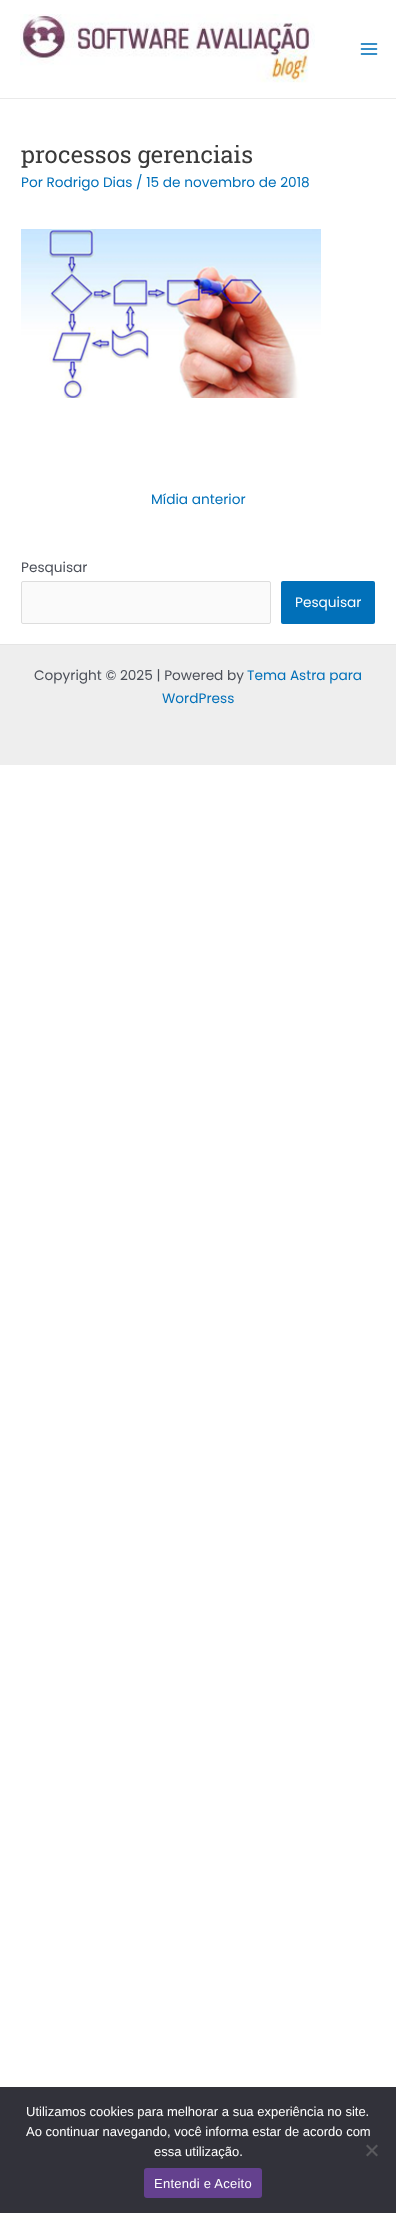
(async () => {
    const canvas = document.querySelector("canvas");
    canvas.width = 396;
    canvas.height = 2213;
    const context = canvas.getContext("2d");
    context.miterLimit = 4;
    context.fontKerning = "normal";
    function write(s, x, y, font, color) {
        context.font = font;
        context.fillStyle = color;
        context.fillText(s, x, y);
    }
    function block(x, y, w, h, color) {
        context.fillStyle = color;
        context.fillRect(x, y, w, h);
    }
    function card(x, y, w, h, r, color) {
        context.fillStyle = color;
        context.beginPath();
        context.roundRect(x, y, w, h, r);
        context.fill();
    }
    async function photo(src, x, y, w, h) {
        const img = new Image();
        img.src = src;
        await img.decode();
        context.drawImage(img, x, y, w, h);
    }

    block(0, 0, 396, 2213, "rgb(255, 255, 255)");
    block(0, 98, 396, 1, "rgb(234, 234, 234)");
    await photo("media/1.png", 20, 14, 295, 69);
    await photo("media/2.png", 360, 43, 18, 12);
    write("processos gerenciais", 21, 163, "23.75px Roboto Slab", "rgb(58, 58, 58)");
    write("Por Rodrigo Dias / 15 de novembro de 2018", 21, 187, "13.7px Poppins", "rgb(1, 112, 185)");
    await photo("media/3.png", 21, 229, 300, 169);
    write("Mídia anterior", 151, 504, "13.7px Poppins", "rgb(1, 112, 185)");
    write("Pesquisar", 21, 572, "13.7px Poppins", "rgb(75, 79, 88)");
    context.fillStyle = "rgb(250, 250, 250)";
    context.beginPath();
    context.roundRect(21.5, 581.5, 249, 42, 1.5);
    context.fill();
    context.strokeStyle = "rgb(221, 221, 221)";
    context.stroke();
    card(281, 581, 94, 43, 2, "rgb(1, 112, 185)");
    write("Pesquisar", 295, 607, "13.7px Poppins", "rgb(255, 255, 255)");
    block(0, 645, 396, 120, "rgb(238, 238, 238)");
    block(0, 644, 396, 1, "rgb(229, 229, 229)");
    write("Copyright © 2025 | Powered by", 34, 680, "13.7px Poppins", "rgb(75, 79, 88)");
    write("Tema Astra para", 247, 680, "13.7px Poppins", "rgb(1, 112, 185)");
    write("WordPress", 162, 703, "13.7px Poppins", "rgb(1, 112, 185)");
    block(0, 2087, 396, 126, "rgb(50, 50, 58)");
    write("Utilizamos cookies para melhorar a sua experiência no site.", 26, 2116, "13px Liberation Sans", "rgb(255, 255, 255)");
    write("Ao continuar navegando, você informa estar de acordo com", 26, 2136, "13px Liberation Sans", "rgb(255, 255, 255)");
    write("essa utilização.", 154, 2156, "13px Liberation Sans", "rgb(255, 255, 255)");
    context.fillStyle = "rgb(89, 89, 93)";
    context.beginPath();
    context.moveTo(376.5, 2144.5);
    context.lineTo(378, 2146);
    context.lineTo(367.5, 2156.5);
    context.lineTo(366, 2155);
    context.closePath();
    context.fill();
    context.beginPath();
    context.moveTo(366, 2146);
    context.lineTo(367.5, 2144.5);
    context.lineTo(378, 2155);
    context.lineTo(376.5, 2156.5);
    context.closePath();
    context.fill();
    card(144, 2168, 118, 30, 3, "rgb(100, 65, 142)");
    context.letterSpacing = "0.25px";
    write("Entendi e Aceito", 154, 2188, "13px Liberation Sans", "rgb(255, 255, 255)");
})();
